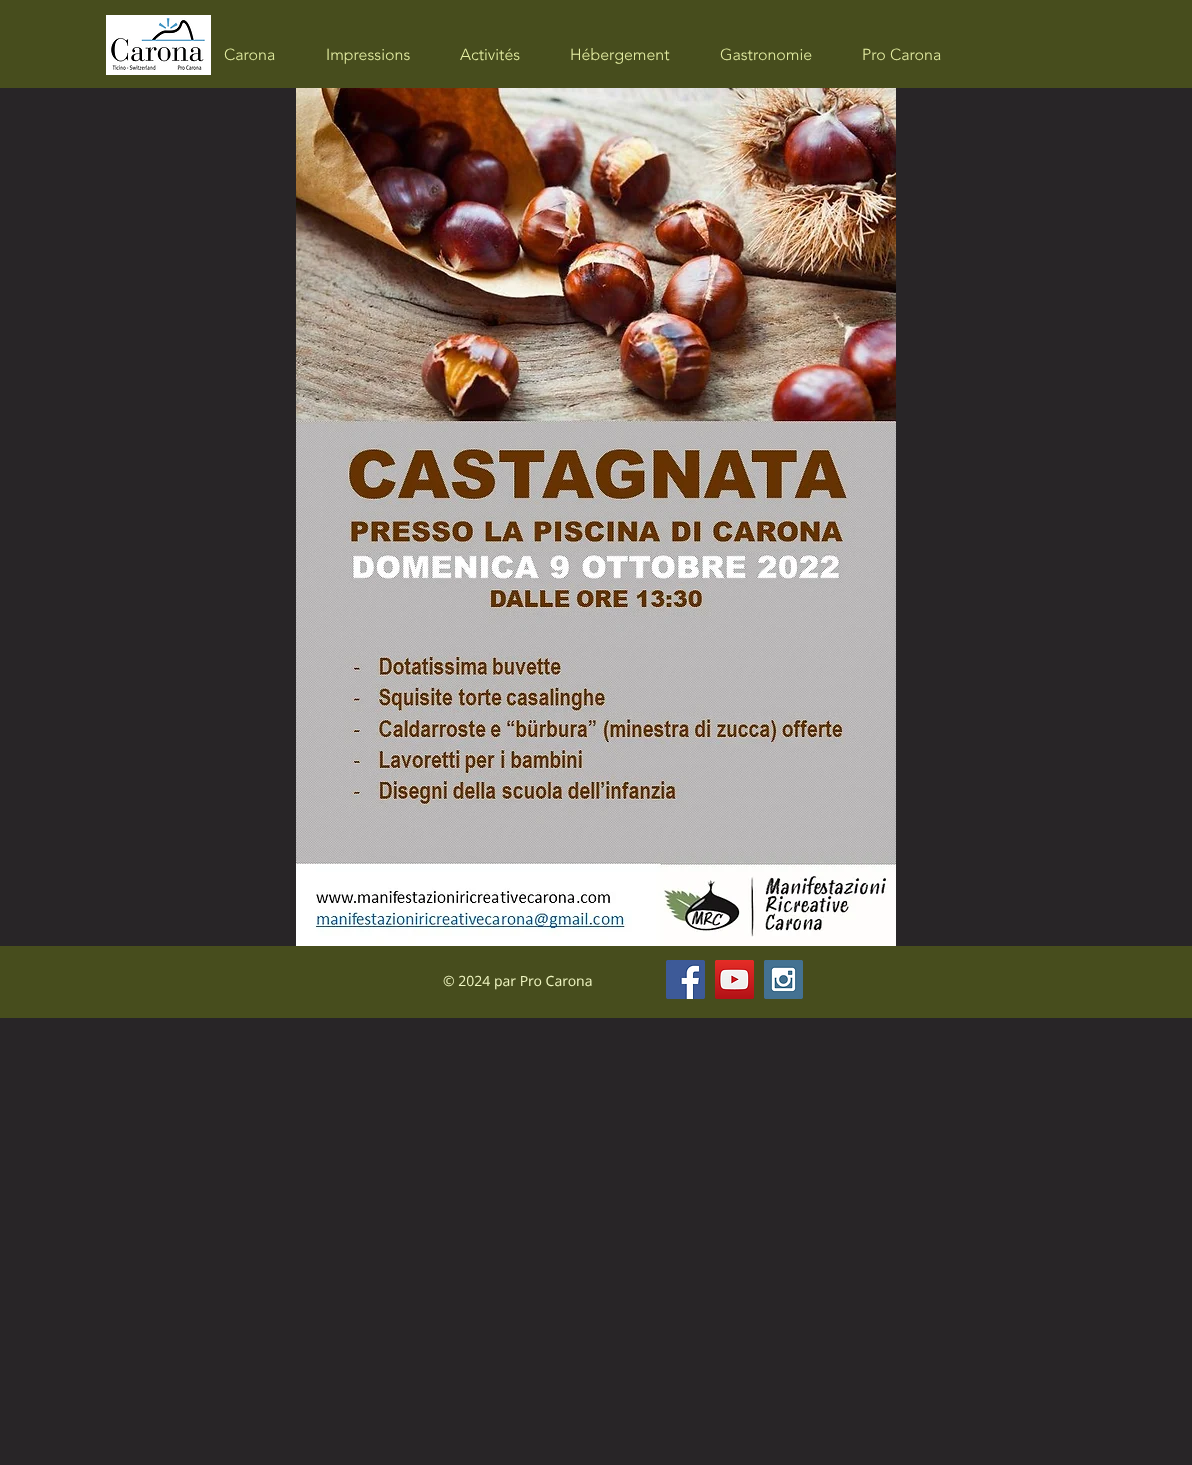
(async () => {
    const canvas = document.querySelector("canvas");
    canvas.width = 1192;
    canvas.height = 1465;
    const context = canvas.getContext("2d");
    context.miterLimit = 4;
    context.fontKerning = "normal";
    function write(s, x, y, font, color) {
        context.font = font;
        context.fillStyle = color;
        context.fillText(s, x, y);
    }
    function block(x, y, w, h, color) {
        context.fillStyle = color;
        context.fillRect(x, y, w, h);
    }
    async function photo(src, x, y, w, h) {
        const img = new Image();
        img.src = src;
        await img.decode();
        context.drawImage(img, x, y, w, h);
    }

    block(0, 0, 1192, 1465, "rgb(40, 37, 39)");
    block(0, 0, 1192, 88, "rgb(71, 77, 29)");
    await photo("media/1.png", 106, 15, 105, 60);
    write("Carona", 224, 60, "300 16px 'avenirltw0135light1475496'", "rgb(230, 240, 164)");
    write("Impressions", 326, 60, "300 16px 'avenirltw0135light1475496'", "rgb(230, 240, 164)");
    write("Activités", 460, 60, "300 16px 'avenirltw0135light1475496'", "rgb(230, 240, 164)");
    write("Hébergement", 570, 60, "300 16px 'avenirltw0135light1475496'", "rgb(230, 240, 164)");
    write("Gastronomie", 720, 60, "300 16px 'avenirltw0135light1475496'", "rgb(230, 240, 164)");
    write("Pro Carona", 862, 60, "300 16px 'avenirltw0135light1475496'", "rgb(230, 240, 164)");
    await photo("media/2.png", 296, 88, 600, 858);
    block(0, 946, 1192, 72, "rgb(71, 77, 29)");
    write("© 2024 par Pro Carona", 443, 986, "14px Open Sans", "rgb(241, 247, 195)");
    await photo("media/3.png", 666, 960, 39, 39);
    await photo("media/4.png", 715, 960, 39, 39);
    await photo("media/5.png", 764, 960, 39, 39);
})();
